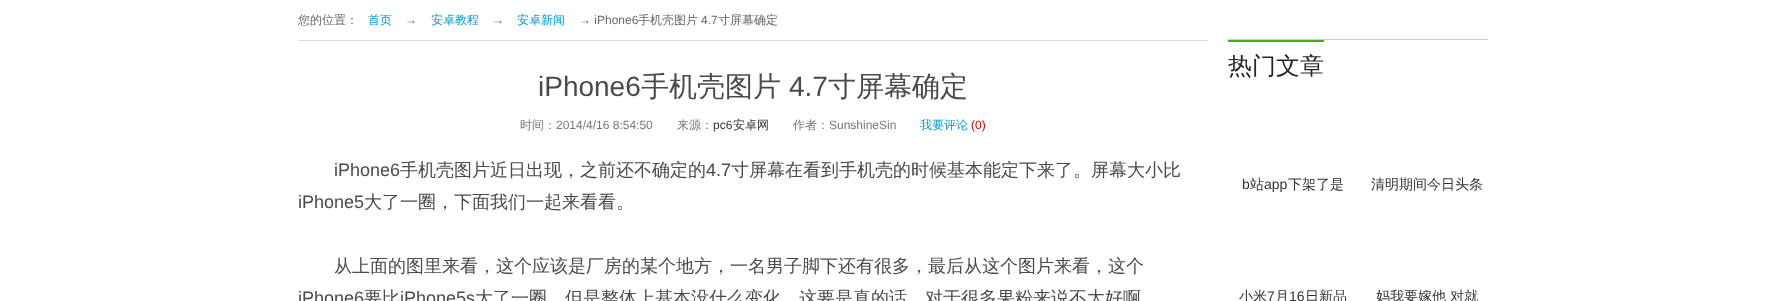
(async () => {
    const canvas = document.querySelector("canvas");
    canvas.width = 1786;
    canvas.height = 301;
    const context = canvas.getContext("2d");
    context.miterLimit = 4;
    context.fontKerning = "normal";
    function write(s, x, y, font, color) {
        context.font = font;
        context.fillStyle = color;
        context.fillText(s, x, y);
    }
    function block(x, y, w, h, color) {
        context.fillStyle = color;
        context.fillRect(x, y, w, h);
    }

    block(0, 0, 1786, 301, "rgb(255, 255, 255)");
    block(298, 40, 910, 1, "rgb(219, 219, 219)");
    write("您的位置：", 298, 24, "500 12px WenQuanYi Zen Hei", "rgb(102, 102, 102)");
    write("首页", 368, 24, "500 12px WenQuanYi Zen Hei", "rgb(3, 155, 217)");
    write("→", 405, 24, "12px Liberation Sans", "rgb(102, 102, 102)");
    write("安卓教程", 431, 24, "500 12px WenQuanYi Zen Hei", "rgb(3, 155, 217)");
    write("→", 492, 24, "12px Liberation Sans", "rgb(102, 102, 102)");
    write("安卓新闻", 517, 24, "500 12px WenQuanYi Zen Hei", "rgb(3, 155, 217)");
    write("→ iPhone6", 579, 24, "12px Liberation Sans", "rgb(102, 102, 102)");
    write("手机壳图片", 638, 24, "500 12px WenQuanYi Zen Hei", "rgb(102, 102, 102)");
    write("4.7", 701, 24, "12px Liberation Sans", "rgb(102, 102, 102)");
    write("寸屏幕确定", 718, 24, "500 12px WenQuanYi Zen Hei", "rgb(102, 102, 102)");
    write("iPhone6", 538, 96, "28px Liberation Sans", "rgb(74, 74, 74)");
    write("手机壳图片", 641, 96, "500 28px WenQuanYi Zen Hei", "rgb(74, 74, 74)");
    write("4.7", 789, 96, "28px Liberation Sans", "rgb(74, 74, 74)");
    write("寸屏幕确定", 828, 96, "500 28px WenQuanYi Zen Hei", "rgb(74, 74, 74)");
    write("时间：", 520, 129, "500 12px WenQuanYi Zen Hei", "rgb(119, 119, 119)");
    write("2014/4/16 8:54:50", 556, 129, "12px Liberation Sans", "rgb(119, 119, 119)");
    write("来源：", 677, 129, "500 12px WenQuanYi Zen Hei", "rgb(119, 119, 119)");
    write("pc6", 713, 129, "12px Liberation Sans", "rgb(51, 51, 51)");
    write("安卓网", 733, 129, "500 12px WenQuanYi Zen Hei", "rgb(51, 51, 51)");
    write("作者：", 793, 129, "500 12px WenQuanYi Zen Hei", "rgb(119, 119, 119)");
    write("SunshineSin", 829, 129, "12px Liberation Sans", "rgb(119, 119, 119)");
    write("我要评论", 920, 129, "500 12px WenQuanYi Zen Hei", "rgb(3, 155, 217)");
    write("(0)", 971, 129, "12px Liberation Sans", "rgb(207, 0, 1)");
    write("iPhone6", 334, 176, "18px Liberation Sans", "rgb(74, 74, 74)");
    write("手机壳图片近日出现，之前还不确定的", 400, 176, "500 18px WenQuanYi Zen Hei", "rgb(74, 74, 74)");
    write("4.7", 706, 176, "18px Liberation Sans", "rgb(74, 74, 74)");
    write("寸屏幕在看到手机壳的时候基本能定下来了。屏幕大小比", 731, 176, "500 18px WenQuanYi Zen Hei", "rgb(74, 74, 74)");
    write("iPhone5", 298, 208, "18px Liberation Sans", "rgb(74, 74, 74)");
    write("大了一圈，下面我们一起来看看。", 364, 208, "500 18px WenQuanYi Zen Hei", "rgb(74, 74, 74)");
    write("从上面的图里来看，这个应该是厂房的某个地方，一名男子脚下还有很多，最后从这个图片来看，这个", 334, 272, "500 18px WenQuanYi Zen Hei", "rgb(74, 74, 74)");
    write("iPhone6", 298, 304, "18px Liberation Sans", "rgb(74, 74, 74)");
    write("要比", 364, 304, "500 18px WenQuanYi Zen Hei", "rgb(74, 74, 74)");
    write("iPhone5s", 400, 304, "18px Liberation Sans", "rgb(74, 74, 74)");
    write("大了一圈，但是整体上基本没什么变化，这要是真的话，对于很多果粉来说不太好啊", 475, 304, "500 18px WenQuanYi Zen Hei", "rgb(74, 74, 74)");
    block(1228, 39, 260, 1, "rgb(204, 204, 204)");
    block(1228, 40, 96, 2, "rgb(63, 177, 24)");
    write("热门文章", 1228, 74, "500 24px WenQuanYi Zen Hei", "rgb(36, 36, 36)");
    write("b", 1242, 189, "14px Liberation Sans", "rgb(51, 51, 51)");
    write("站", 1250, 189, "500 14px WenQuanYi Zen Hei", "rgb(51, 51, 51)");
    write("app", 1264, 189, "14px Liberation Sans", "rgb(51, 51, 51)");
    write("下架了是", 1288, 189, "500 14px WenQuanYi Zen Hei", "rgb(51, 51, 51)");
    write("清明期间今日头条", 1371, 189, "500 14px WenQuanYi Zen Hei", "rgb(51, 51, 51)");
    write("小米", 1239, 301, "500 14px WenQuanYi Zen Hei", "rgb(51, 51, 51)");
    write("7", 1267, 301, "14px Liberation Sans", "rgb(51, 51, 51)");
    write("月", 1275, 301, "500 14px WenQuanYi Zen Hei", "rgb(51, 51, 51)");
    write("16", 1289, 301, "14px Liberation Sans", "rgb(51, 51, 51)");
    write("日新品", 1305, 301, "500 14px WenQuanYi Zen Hei", "rgb(51, 51, 51)");
    write("妈我要嫁他 对就", 1376, 301, "500 14px WenQuanYi Zen Hei", "rgb(51, 51, 51)");
})();
